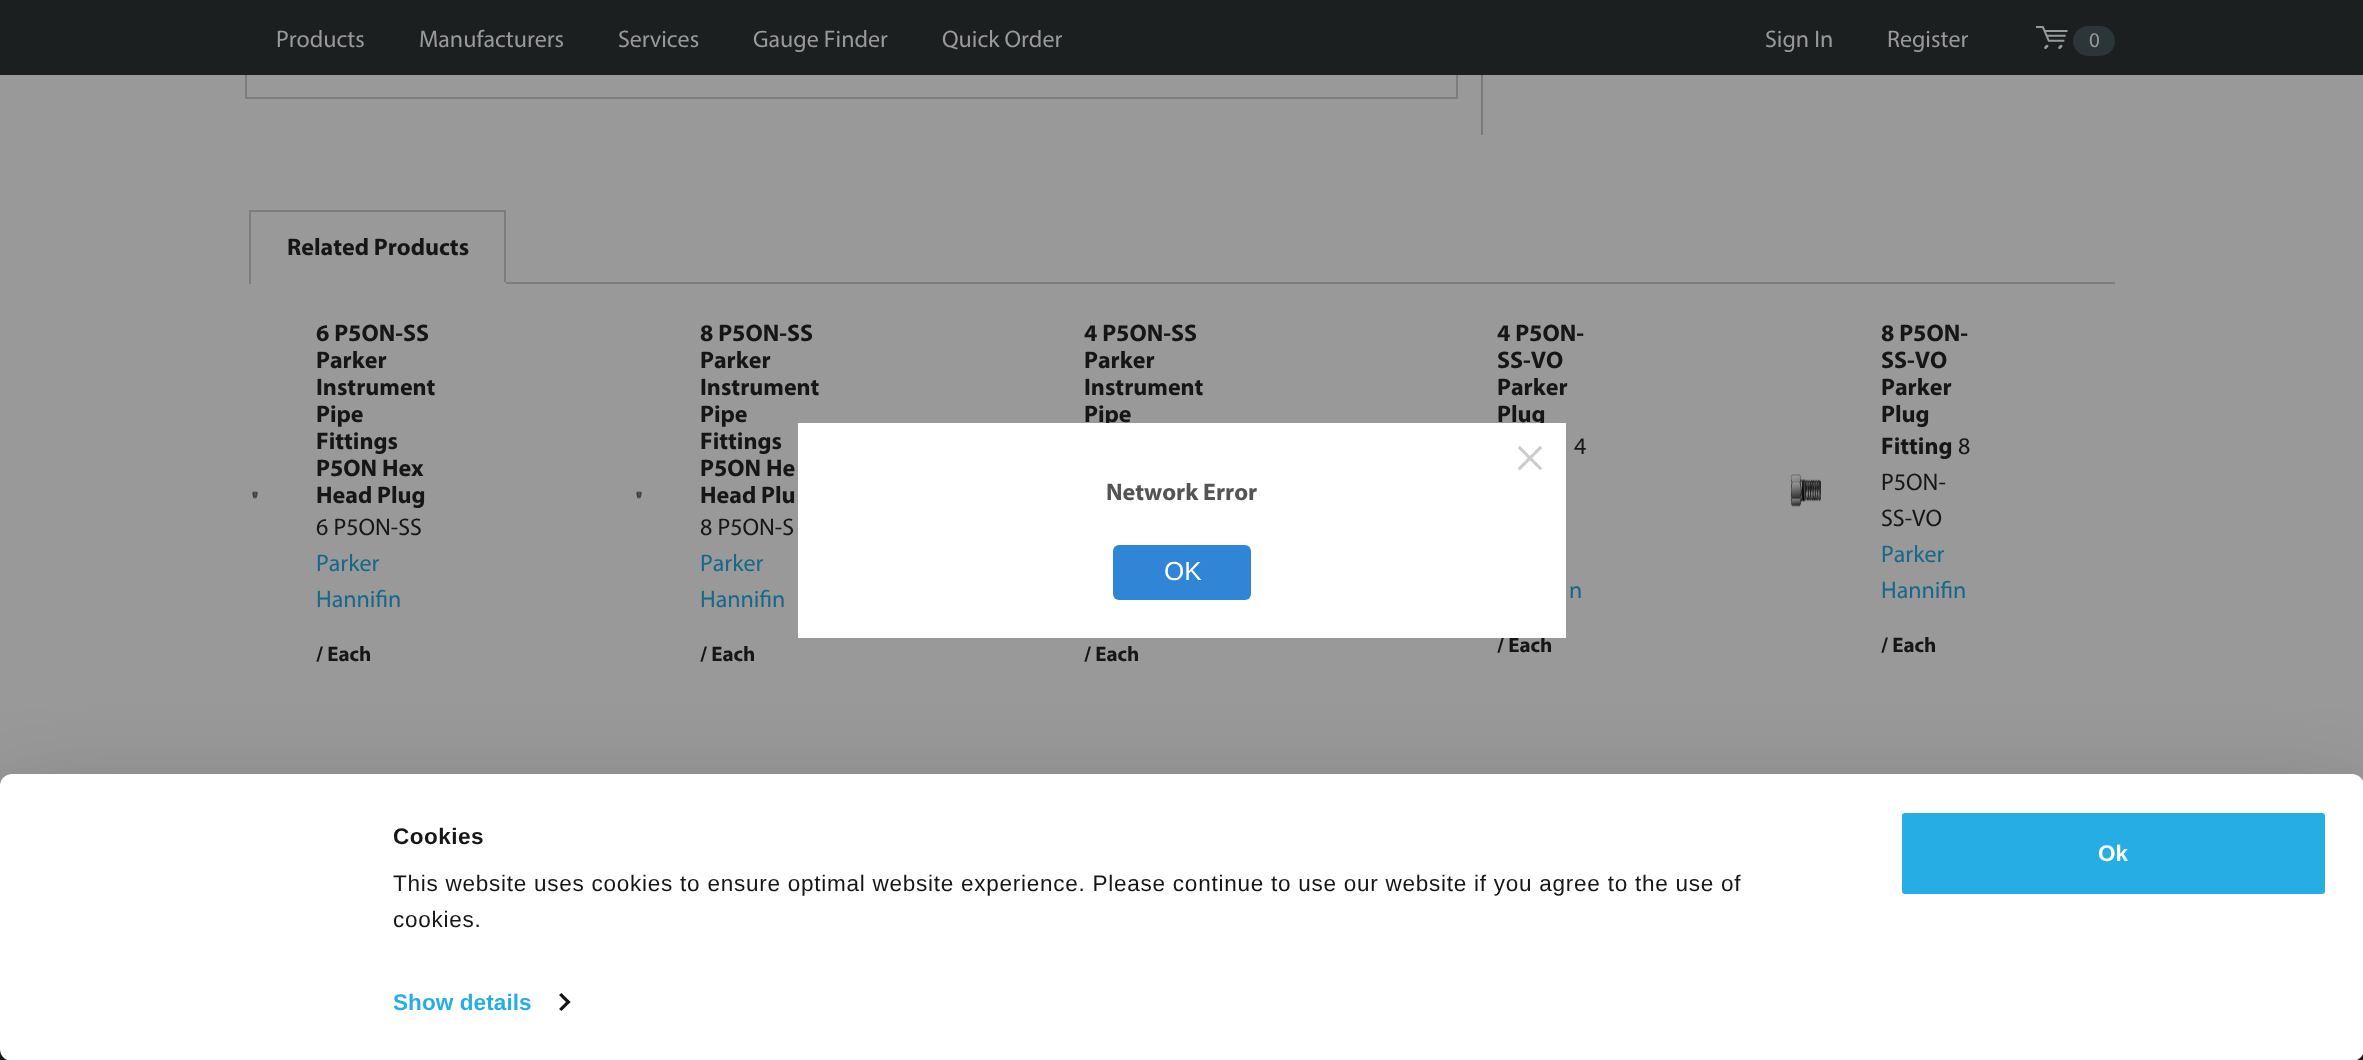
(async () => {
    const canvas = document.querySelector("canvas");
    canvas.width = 2363;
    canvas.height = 1060;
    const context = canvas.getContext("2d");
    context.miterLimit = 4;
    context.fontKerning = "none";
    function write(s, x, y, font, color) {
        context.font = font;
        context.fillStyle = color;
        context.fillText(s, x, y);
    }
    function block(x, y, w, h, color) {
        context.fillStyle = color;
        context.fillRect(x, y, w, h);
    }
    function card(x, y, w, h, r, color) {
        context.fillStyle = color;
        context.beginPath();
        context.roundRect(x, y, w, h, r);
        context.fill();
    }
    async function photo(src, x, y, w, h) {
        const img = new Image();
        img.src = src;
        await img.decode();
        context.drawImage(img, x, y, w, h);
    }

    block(0, 0, 2363, 1060, "rgb(153, 153, 153)");
    context.strokeStyle = "rgb(125, 125, 125)";
    context.lineWidth = 2;
    context.strokeRect(246, -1, 1211, 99);
    block(0, 0, 2363, 75, "rgb(27, 31, 32)");
    write("Products", 276, 47, "24px Myriad", "rgb(153, 153, 153)");
    write("Manufacturers", 419, 47, "24px Myriad", "rgb(153, 153, 153)");
    write("Gauge Finder", 753, 47, "24px Myriad", "rgb(153, 153, 153)");
    write("Services", 618, 47, "24px Myriad", "rgb(153, 153, 153)");
    write("Quick Order", 942, 47, "24px Myriad", "rgb(153, 153, 153)");
    write("Sign In", 1765, 47, "24px Myriad", "rgb(153, 153, 153)");
    write("Register", 1887, 47, "24px Myriad", "rgb(153, 153, 153)");
    write("𑗸", 2036, 48, "24px 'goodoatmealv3'", "rgb(153, 153, 153)");
    card(2073, 26, 42, 30, 15, "rgb(44, 53, 55)");
    write("0", 2089, 47, "21px Myriad", "rgb(153, 153, 153)");
    block(1481, 75, 2, 60, "rgb(122, 122, 122)");
    block(506, 282, 1609, 2, "rgb(124, 125, 127)");
    block(249, 210, 257, 2, "rgb(124, 125, 127)");
    block(504, 210, 2, 74, "rgb(124, 125, 127)");
    block(504, 282, 2, 2, "rgb(153, 153, 153)");
    block(249, 210, 2, 74, "rgb(124, 125, 127)");
    write("Related Products", 287, 255, "bold 24px Myriad", "rgb(22, 22, 22)");
    await photo("media/1.png", 252, 491, 6, 8);
    write("6 P5ON-SS", 316, 341, "bold 24px Myriad", "rgb(22, 22, 22)");
    write("Parker", 316, 368, "bold 24px Myriad", "rgb(22, 22, 22)");
    write("Instrument", 316, 395, "bold 24px Myriad", "rgb(22, 22, 22)");
    write("Pipe", 316, 422, "bold 24px Myriad", "rgb(22, 22, 22)");
    write("Fittings", 316, 449, "bold 24px Myriad", "rgb(22, 22, 22)");
    write("P5ON Hex", 316, 476, "bold 24px Myriad", "rgb(22, 22, 22)");
    write("Head Plug", 316, 503, "bold 24px Myriad", "rgb(22, 22, 22)");
    write("6 P5ON-SS", 316, 535, "24px Myriad", "rgb(22, 22, 22)");
    write("Parker", 316, 571, "24px Myriad", "rgb(23, 104, 137)");
    write("Hannifin", 316, 607, "24px Myriad", "rgb(23, 104, 137)");
    write("/ Each", 316, 661, "bold 21px Myriad", "rgb(22, 22, 22)");
    await photo("media/1.png", 636, 491, 6, 8);
    write("8 P5ON-SS", 700, 341, "bold 24px Myriad", "rgb(22, 22, 22)");
    write("Parker", 700, 368, "bold 24px Myriad", "rgb(22, 22, 22)");
    write("Instrument", 700, 395, "bold 24px Myriad", "rgb(22, 22, 22)");
    write("Pipe", 700, 422, "bold 24px Myriad", "rgb(22, 22, 22)");
    write("Fittings", 700, 449, "bold 24px Myriad", "rgb(22, 22, 22)");
    write("P5ON He", 700, 476, "bold 24px Myriad", "rgb(22, 22, 22)");
    write("Head Plu", 700, 503, "bold 24px Myriad", "rgb(22, 22, 22)");
    write("8 P5ON-S", 700, 535, "24px Myriad", "rgb(22, 22, 22)");
    write("Parker", 700, 571, "24px Myriad", "rgb(23, 104, 137)");
    write("Hannifin", 700, 607, "24px Myriad", "rgb(23, 104, 137)");
    write("/ Each", 700, 661, "bold 21px Myriad", "rgb(22, 22, 22)");
    write("4 P5ON-SS", 1084, 341, "bold 24px Myriad", "rgb(22, 22, 22)");
    write("Parker", 1084, 368, "bold 24px Myriad", "rgb(22, 22, 22)");
    write("Instrument", 1084, 395, "bold 24px Myriad", "rgb(22, 22, 22)");
    write("Pipe", 1084, 422, "bold 24px Myriad", "rgb(22, 22, 22)");
    write("/ Each", 1084, 661, "bold 21px Myriad", "rgb(22, 22, 22)");
    write("4 P5ON-", 1497, 341, "bold 24px Myriad", "rgb(22, 22, 22)");
    write("SS-VO", 1497, 368, "bold 24px Myriad", "rgb(22, 22, 22)");
    write("Parker", 1497, 395, "bold 24px Myriad", "rgb(22, 22, 22)");
    write("Plug", 1497, 422, "bold 24px Myriad", "rgb(22, 22, 22)");
    write("4", 1574, 454, "24px Myriad", "rgb(22, 22, 22)");
    write("n", 1569, 598, "24px Myriad", "rgb(23, 104, 137)");
    write("/ Each", 1497, 652, "bold 21px Myriad", "rgb(22, 22, 22)");
    await photo("media/2.png", 1790, 474, 31, 33);
    write("8 P5ON-", 1881, 341, "bold 24px Myriad", "rgb(22, 22, 22)");
    write("SS-VO", 1881, 368, "bold 24px Myriad", "rgb(22, 22, 22)");
    write("Parker", 1881, 395, "bold 24px Myriad", "rgb(22, 22, 22)");
    write("Plug", 1881, 422, "bold 24px Myriad", "rgb(22, 22, 22)");
    write("Fitting", 1881, 454, "bold 24px Myriad", "rgb(22, 22, 22)");
    write("8", 1958, 454, "24px Myriad", "rgb(22, 22, 22)");
    write("P5ON-", 1881, 490, "24px Myriad", "rgb(22, 22, 22)");
    write("SS-VO", 1881, 526, "24px Myriad", "rgb(22, 22, 22)");
    write("Parker", 1881, 562, "24px Myriad", "rgb(23, 104, 137)");
    write("Hannifin", 1881, 598, "24px Myriad", "rgb(23, 104, 137)");
    write("/ Each", 1881, 652, "bold 21px Myriad", "rgb(22, 22, 22)");
    block(798, 423, 768, 215, "rgb(255, 255, 255)");
    write("×", 1513, 478, "60px Liberation Serif", "rgb(204, 204, 204)");
    write("Network Error", 1106, 500, "bold 24px Myriad", "rgb(84, 84, 84)");
    card(1113, 545, 138, 55, 6, "rgb(48, 133, 214)");
    write("OK", 1164, 580, "26px Liberation Sans", "rgb(255, 255, 255)");
    block(0, 1049, 2363, 11, "rgb(27, 31, 32)");
    context.fillStyle = "rgba(0, 0, 0, 0.3)";
    context.filter = "blur(52.5px)";
    context.beginPath();
    context.roundRect(0, 819, 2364, 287, 12);
    context.fill();
    context.filter = "none";
    card(0, 774, 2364, 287, 12, "rgb(255, 255, 255)");
    context.letterSpacing = "0.5px";
    write("Cookies", 393, 844, "bold 22.5px Liberation Sans", "rgb(22, 22, 22)");
    context.letterSpacing = "0.75px";
    write("This website uses cookies to ensure optimal website experience. Please continue to use our website if you agree to the use of", 393, 891, "22.5px Liberation Sans", "rgb(22, 22, 22)");
    write("cookies.", 393, 927, "22.5px Liberation Sans", "rgb(22, 22, 22)");
    context.letterSpacing = "0.1px";
    write("Show details", 393, 1010, "bold 22.5px Liberation Sans", "rgb(38, 174, 228)");
    context.fillStyle = "rgb(20, 20, 20)";
    context.beginPath();
    context.moveTo(561.5, 993);
    context.lineTo(570.5, 1002);
    context.lineTo(568, 1004);
    context.lineTo(559, 995);
    context.closePath();
    context.fill();
    context.beginPath();
    context.moveTo(568, 1000);
    context.lineTo(570.5, 1002);
    context.lineTo(561.5, 1011);
    context.lineTo(559, 1009);
    context.closePath();
    context.fill();
    context.fillStyle = "rgb(38, 174, 228)";
    context.beginPath();
    context.roundRect(1900.5, 811.5, 426, 84, 4.5);
    context.fill();
    context.strokeStyle = "rgb(255, 255, 255)";
    context.lineWidth = 3;
    context.stroke();
    context.letterSpacing = "0px";
    write("Ok", 2098, 861, "bold 22.5px Liberation Sans", "rgb(255, 255, 255)");
})();
